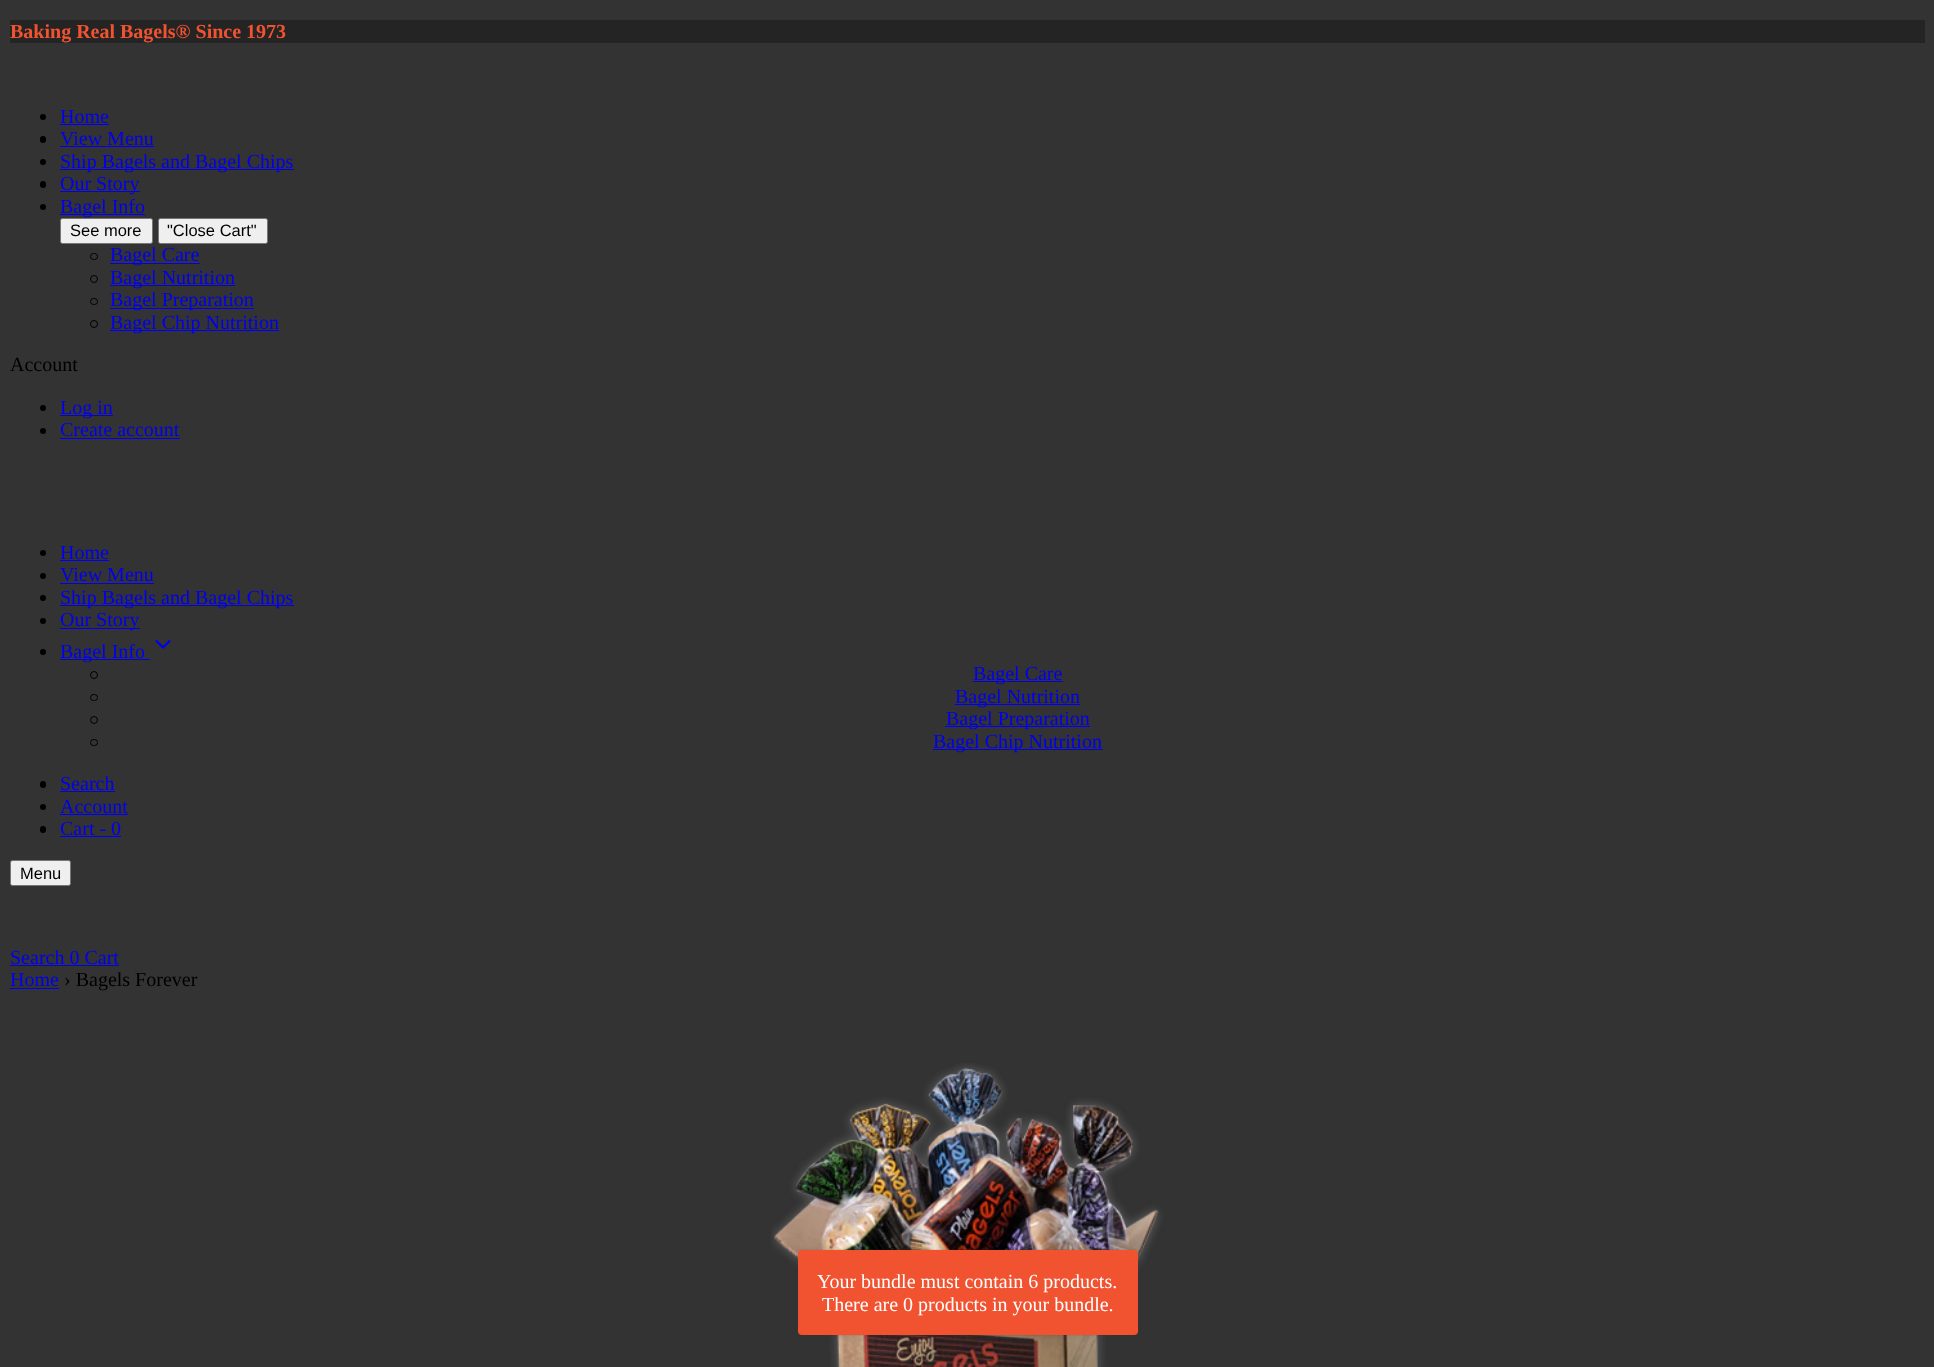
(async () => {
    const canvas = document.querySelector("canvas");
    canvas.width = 1934;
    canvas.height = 1367;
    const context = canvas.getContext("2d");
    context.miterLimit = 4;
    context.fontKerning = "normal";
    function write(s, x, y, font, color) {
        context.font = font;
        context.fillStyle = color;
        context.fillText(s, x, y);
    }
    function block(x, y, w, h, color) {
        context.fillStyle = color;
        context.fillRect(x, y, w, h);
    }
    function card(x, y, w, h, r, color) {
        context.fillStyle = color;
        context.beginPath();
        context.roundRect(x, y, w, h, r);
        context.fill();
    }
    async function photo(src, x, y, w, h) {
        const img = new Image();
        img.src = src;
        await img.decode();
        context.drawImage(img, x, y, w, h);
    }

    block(0, 0, 1934, 1367, "rgb(51, 51, 51)");
    block(10, 20, 1915, 23, "rgb(36, 36, 36)");
    write("Baking Real Bagels® Since 1973", 10, 38, "bold 20px Liberation Serif", "rgb(241, 83, 49)");
    context.fillStyle = "rgb(0, 0, 0)";
    context.beginPath();
    context.arc(43, 117, 3, 0, Math.PI * 2);
    context.fill();
    write("Home", 60, 123, "20px Liberation Serif", "rgb(0, 0, 238)");
    block(60, 124, 49, 1, "rgb(0, 0, 238)");
    card(40, 136, 6, 7, 3, "rgb(0, 0, 0)");
    write("View Menu", 60, 145, "20px Liberation Serif", "rgb(0, 0, 238)");
    block(60, 146, 94, 1, "rgb(0, 0, 238)");
    context.fillStyle = "rgb(0, 0, 0)";
    context.beginPath();
    context.arc(43, 162, 3, 0, Math.PI * 2);
    context.fill();
    block(60, 169, 234, 1, "rgb(0, 0, 238)");
    write("Ship Bagels and Bagel Chips", 60, 168, "20px Liberation Serif", "rgb(0, 0, 238)");
    card(40, 181, 6, 7, 3, "rgb(0, 0, 0)");
    block(60, 191, 80, 1, "rgb(0, 0, 238)");
    write("Our Story", 60, 190, "20px Liberation Serif", "rgb(0, 0, 238)");
    context.fillStyle = "rgb(0, 0, 0)";
    context.beginPath();
    context.arc(43, 207, 3, 0, Math.PI * 2);
    context.fill();
    block(60, 214, 85, 1, "rgb(0, 0, 238)");
    write("Bagel Info", 60, 213, "20px Liberation Serif", "rgb(0, 0, 238)");
    context.fillStyle = "rgb(239, 239, 239)";
    context.beginPath();
    context.roundRect(60.5, 218.5, 92, 25, 2);
    context.fill();
    context.strokeStyle = "rgb(118, 118, 118)";
    context.stroke();
    write("See more", 70, 236, "16.5px Liberation Sans", "rgb(0, 0, 0)");
    context.fillStyle = "rgb(239, 239, 239)";
    context.beginPath();
    context.roundRect(158.5, 218.5, 109, 25, 2);
    context.fill();
    context.stroke();
    write("\"Close Cart\"", 167, 236, "16.5px Liberation Sans", "rgb(0, 0, 0)");
    context.beginPath();
    context.roundRect(90.5, 253.5, 7, 6, 3);
    context.strokeStyle = "rgb(0, 0, 0)";
    context.stroke();
    block(110, 263, 90, 1, "rgb(0, 0, 238)");
    write("Bagel Care", 110, 261, "20px Liberation Serif", "rgb(0, 0, 238)");
    context.beginPath();
    context.arc(94, 279, 3.5, 0, Math.PI * 2);
    context.stroke();
    block(110, 285, 125, 1, "rgb(0, 0, 238)");
    write("Bagel Nutrition", 110, 284, "20px Liberation Serif", "rgb(0, 0, 238)");
    context.beginPath();
    context.roundRect(90.5, 298.5, 7, 6, 3);
    context.stroke();
    block(110, 308, 144, 1, "rgb(0, 0, 238)");
    write("Bagel Preparation", 110, 306, "20px Liberation Serif", "rgb(0, 0, 238)");
    context.beginPath();
    context.arc(94, 324, 3.5, 0, Math.PI * 2);
    context.stroke();
    block(110, 330, 169, 1, "rgb(0, 0, 238)");
    write("Bagel Chip Nutrition", 110, 329, "20px Liberation Serif", "rgb(0, 0, 238)");
    write("Account", 10, 371, "20px Liberation Serif", "rgb(0, 0, 0)");
    context.beginPath();
    context.arc(43, 408, 3, 0, Math.PI * 2);
    context.fill();
    block(60, 415, 53, 1, "rgb(0, 0, 238)");
    write("Log in", 60, 414, "20px Liberation Serif", "rgb(0, 0, 238)");
    context.fillStyle = "rgb(0, 0, 0)";
    context.beginPath();
    context.arc(43, 431, 3, 0, Math.PI * 2);
    context.fill();
    write("Create account", 60, 436, "20px Liberation Serif", "rgb(0, 0, 238)");
    block(60, 438, 120, 1, "rgb(0, 0, 238)");
    context.fillStyle = "rgb(0, 0, 0)";
    context.beginPath();
    context.arc(43, 553, 3, 0, Math.PI * 2);
    context.fill();
    write("Home", 60, 559, "20px Liberation Serif", "rgb(0, 0, 238)");
    block(60, 560, 49, 1, "rgb(0, 0, 238)");
    context.fillStyle = "rgb(0, 0, 0)";
    context.beginPath();
    context.arc(43, 576, 3, 0, Math.PI * 2);
    context.fill();
    write("View Menu", 60, 581, "20px Liberation Serif", "rgb(0, 0, 238)");
    block(60, 583, 94, 1, "rgb(0, 0, 238)");
    context.fillStyle = "rgb(0, 0, 0)";
    context.beginPath();
    context.arc(43, 598, 3, 0, Math.PI * 2);
    context.fill();
    block(60, 605, 234, 1, "rgb(0, 0, 238)");
    write("Ship Bagels and Bagel Chips", 60, 604, "20px Liberation Serif", "rgb(0, 0, 238)");
    context.fillStyle = "rgb(0, 0, 0)";
    context.beginPath();
    context.arc(43, 621, 3, 0, Math.PI * 2);
    context.fill();
    block(60, 628, 80, 1, "rgb(0, 0, 238)");
    write("Our Story", 60, 626, "20px Liberation Serif", "rgb(0, 0, 238)");
    context.fillStyle = "rgb(0, 0, 0)";
    context.beginPath();
    context.arc(43, 652, 3, 0, Math.PI * 2);
    context.fill();
    block(60, 659, 90, 1, "rgb(0, 0, 238)");
    write("Bagel Info", 60, 658, "20px Liberation Serif", "rgb(0, 0, 238)");
    context.beginPath();
    context.moveTo(156.5, 641);
    context.lineTo(163, 647.5);
    context.lineTo(169.5, 641);
    context.strokeStyle = "rgb(0, 0, 238)";
    context.lineWidth = 2.2;
    context.lineCap = "round";
    context.lineJoin = "round";
    context.stroke();
    context.beginPath();
    context.arc(94, 675, 3.5, 0, Math.PI * 2);
    context.strokeStyle = "rgb(0, 0, 0)";
    context.lineWidth = 1;
    context.stroke();
    block(973, 681, 90, 1, "rgb(0, 0, 238)");
    write("Bagel Care", 973, 680, "20px Liberation Serif", "rgb(0, 0, 238)");
    context.beginPath();
    context.roundRect(90.5, 694.5, 7, 6, 3);
    context.lineJoin = "miter";
    context.stroke();
    block(955, 704, 125, 1, "rgb(0, 0, 238)");
    write("Bagel Nutrition", 955, 703, "20px Liberation Serif", "rgb(0, 0, 238)");
    context.beginPath();
    context.arc(94, 720, 3.5, 0, Math.PI * 2);
    context.stroke();
    block(945, 726, 145, 1, "rgb(0, 0, 238)");
    write("Bagel Preparation", 946, 725, "20px Liberation Serif", "rgb(0, 0, 238)");
    context.beginPath();
    context.roundRect(90.5, 739.5, 7, 6, 3);
    context.stroke();
    block(933, 749, 170, 1, "rgb(0, 0, 238)");
    write("Bagel Chip Nutrition", 933, 748, "20px Liberation Serif", "rgb(0, 0, 238)");
    card(40, 781, 6, 7, 3, "rgb(0, 0, 0)");
    write("Search", 60, 790, "20px Liberation Serif", "rgb(0, 0, 238)");
    block(60, 791, 55, 1, "rgb(0, 0, 238)");
    context.fillStyle = "rgb(0, 0, 0)";
    context.beginPath();
    context.arc(43, 807, 3, 0, Math.PI * 2);
    context.fill();
    write("Account", 60, 813, "20px Liberation Serif", "rgb(0, 0, 238)");
    block(60, 814, 68, 1, "rgb(0, 0, 238)");
    card(40, 826, 6, 7, 3, "rgb(0, 0, 0)");
    write("Cart - 0", 60, 835, "20px Liberation Serif", "rgb(0, 0, 238)");
    block(60, 836, 61, 1, "rgb(0, 0, 238)");
    context.fillStyle = "rgb(239, 239, 239)";
    context.beginPath();
    context.roundRect(10.5, 860.5, 60, 25, 2);
    context.fill();
    context.strokeStyle = "rgb(118, 118, 118)";
    context.stroke();
    write("Menu", 20, 879, "16.5px Liberation Sans", "rgb(0, 0, 0)");
    write("Search 0 Cart", 10, 964, "20px Liberation Serif", "rgb(0, 0, 238)");
    block(10, 965, 109, 1, "rgb(0, 0, 238)");
    write("Home", 10, 986, "20px Liberation Serif", "rgb(0, 0, 238)");
    block(10, 988, 49, 1, "rgb(0, 0, 238)");
    write("› Bagels Forever", 64, 986, "20px Liberation Serif", "rgb(0, 0, 0)");
    await photo("media/1.png", 771, 1063, 392, 304);
    context.fillStyle = "rgba(63, 63, 68, 0.15)";
    context.filter = "blur(2px)";
    context.beginPath();
    context.roundRect(798, 1251, 340, 85, 4);
    context.fill();
    context.filter = "none";
    context.strokeStyle = "rgba(63, 63, 68, 0.05)";
    context.strokeRect(796.5, 1249.5, 342, 86);
    card(798, 1250, 340, 85, 4, "rgb(241, 83, 49)");
    write("Your bundle must contain 6 products.", 817, 1288, "20px Liberation Serif", "rgb(255, 255, 255)");
    write("There are 0 products in your bundle.", 822, 1311, "20px Liberation Serif", "rgb(255, 255, 255)");
})();
